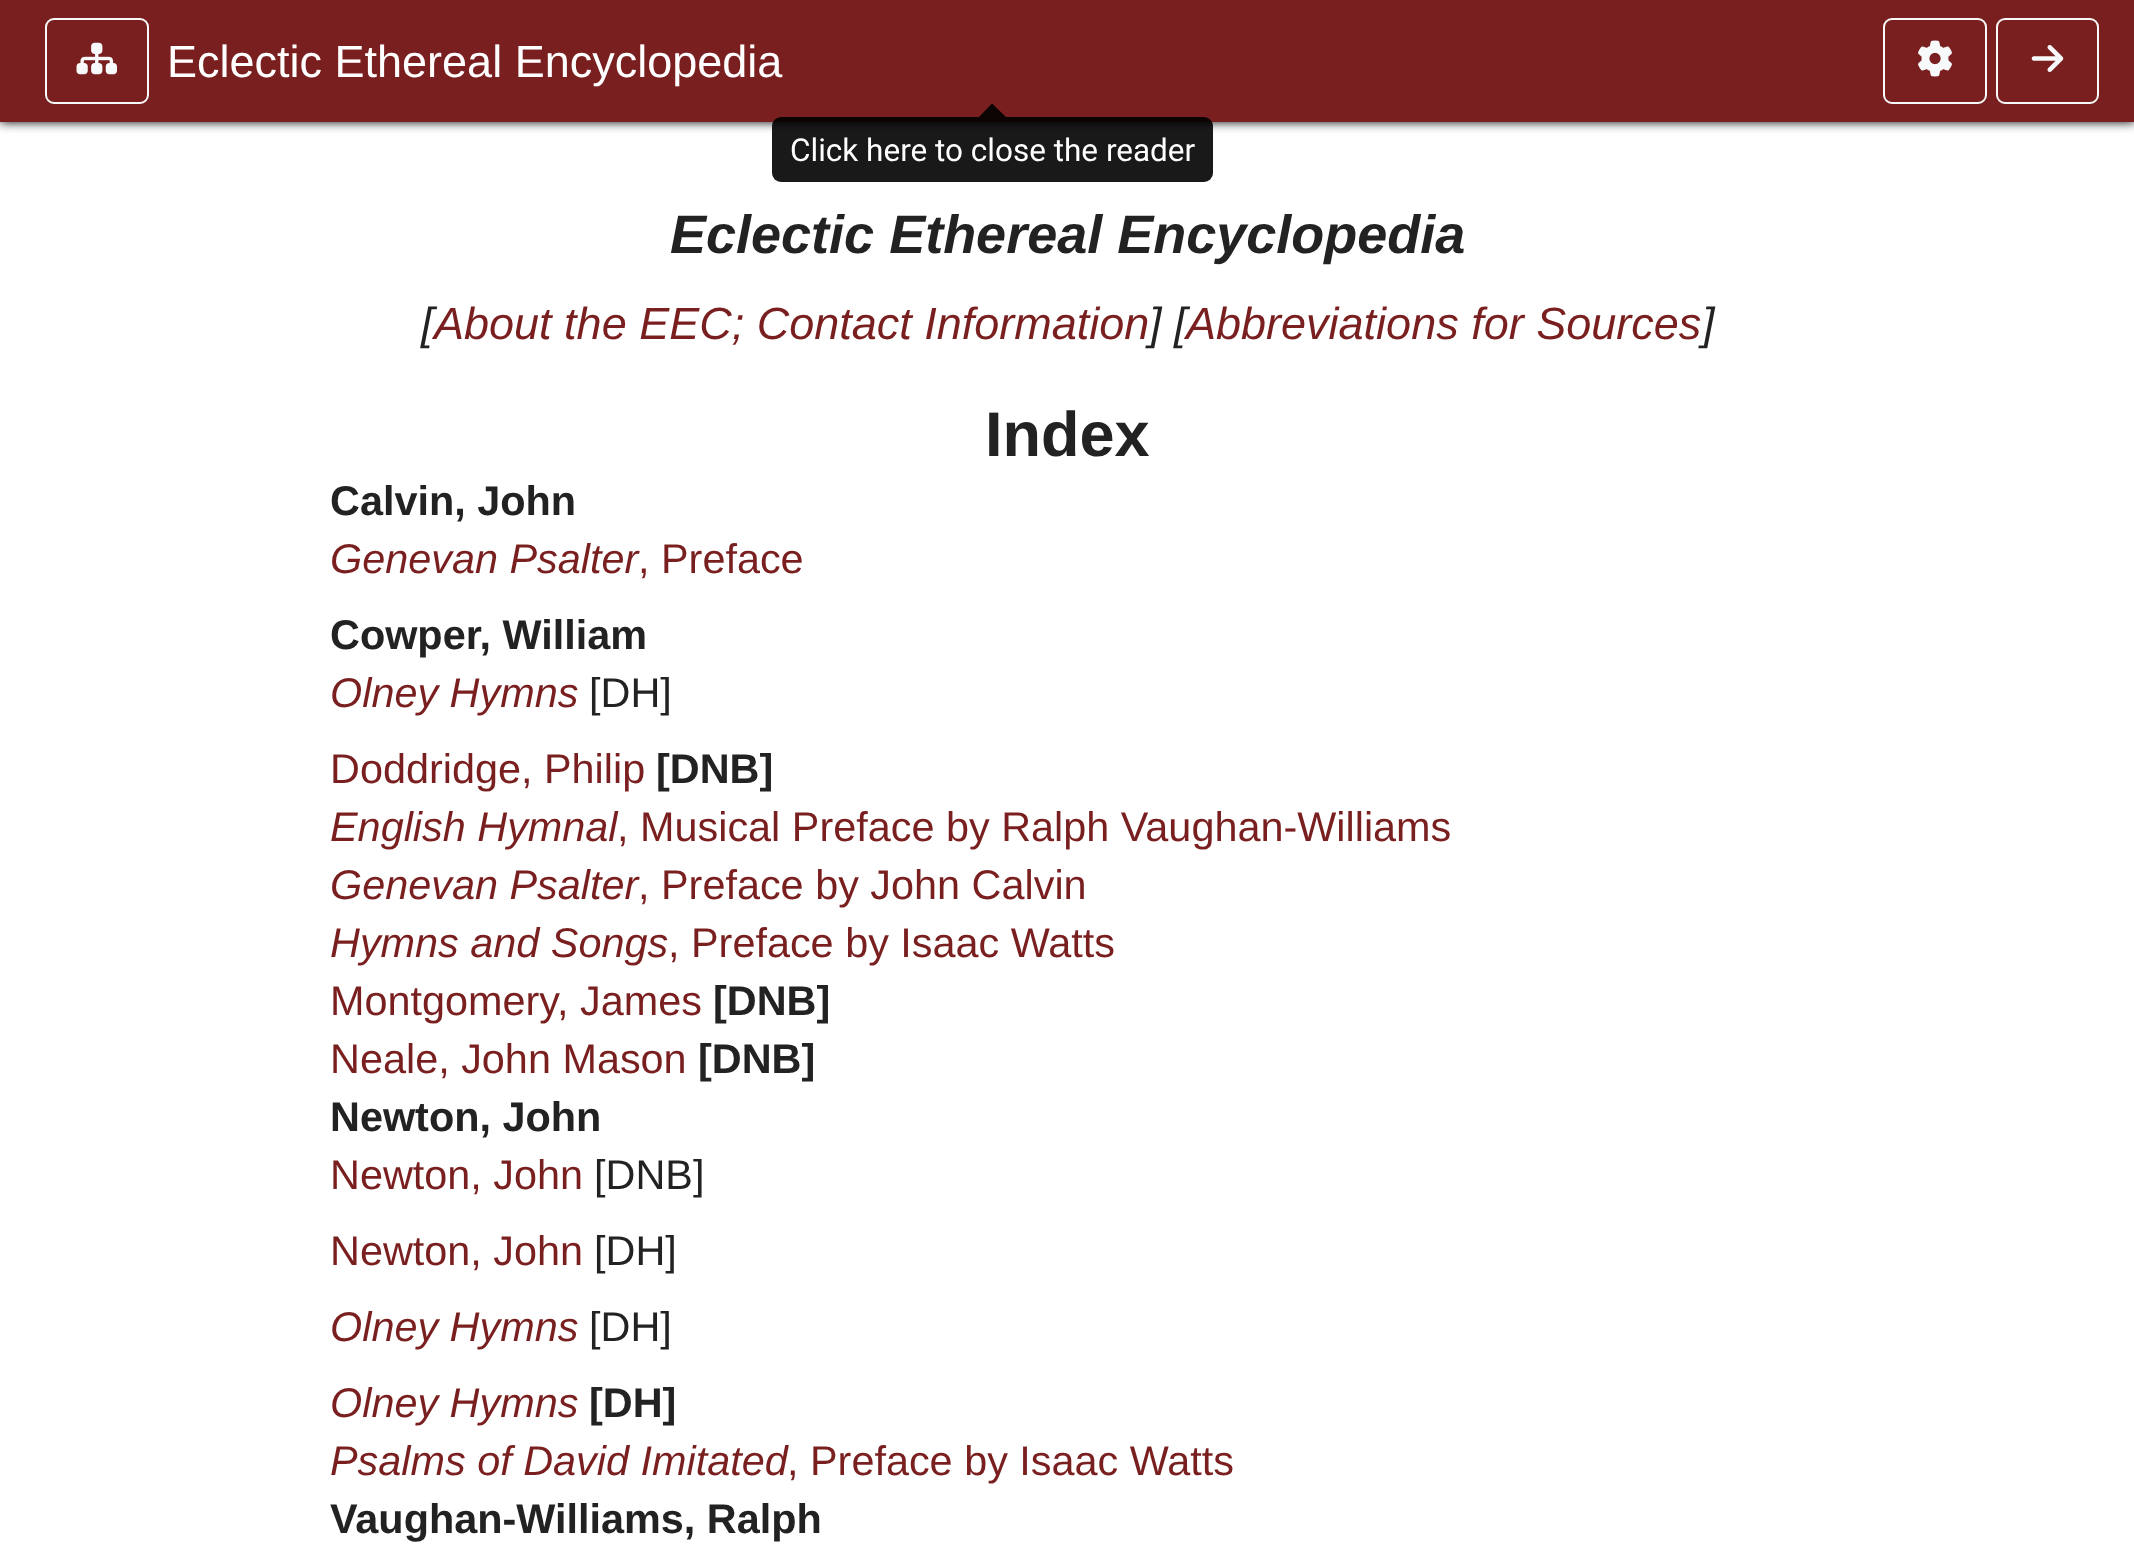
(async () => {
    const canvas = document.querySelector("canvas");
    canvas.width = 2134;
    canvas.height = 1564;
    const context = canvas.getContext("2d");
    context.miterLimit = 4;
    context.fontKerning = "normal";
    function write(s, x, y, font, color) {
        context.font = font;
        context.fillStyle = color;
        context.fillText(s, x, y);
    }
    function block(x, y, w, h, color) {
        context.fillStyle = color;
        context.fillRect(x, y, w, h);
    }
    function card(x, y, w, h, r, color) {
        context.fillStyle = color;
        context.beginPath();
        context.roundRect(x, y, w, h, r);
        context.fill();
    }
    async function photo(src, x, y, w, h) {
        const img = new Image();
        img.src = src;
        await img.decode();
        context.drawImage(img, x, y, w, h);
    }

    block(0, 0, 2134, 1564, "rgb(255, 255, 255)");
    context.fillStyle = "rgb(0, 0, 0)";
    context.filter = "blur(5.5px)";
    context.beginPath();
    context.rect(0, 0, 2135, 122);
    context.fill();
    context.filter = "none";
    block(0, 0, 2134, 122, "rgb(122, 31, 31)");
    context.beginPath();
    context.roundRect(46, 19, 102, 84, 8);
    context.strokeStyle = "rgb(248, 249, 250)";
    context.lineWidth = 2;
    context.stroke();
    await photo("media/1.png", 76, 42, 41, 33);
    write("Eclectic Ethereal Encyclopedia", 167, 77, "45px Liberation Sans", "rgb(255, 255, 255)");
    context.beginPath();
    context.roundRect(1884, 19, 102, 84, 8);
    context.stroke();
    await photo("media/2.png", 1918, 40, 34, 37);
    context.beginPath();
    context.roundRect(1997, 19, 101, 84, 8);
    context.stroke();
    await photo("media/3.png", 2031, 45, 33, 27);
    write("Eclectic Ethereal Encyclopedia", 670, 253, "italic bold 54px Liberation Sans", "rgb(34, 34, 34)");
    write("[", 421, 339, "italic 45px Liberation Sans", "rgb(34, 34, 34)");
    write("About the EEC; Contact Information", 434, 339, "italic 45px Liberation Sans", "rgb(122, 31, 31)");
    write("] [", 1149, 339, "italic 45px Liberation Sans", "rgb(34, 34, 34)");
    write("Abbreviations for Sources", 1186, 339, "italic 45px Liberation Sans", "rgb(122, 31, 31)");
    write("]", 1702, 339, "italic 45px Liberation Sans", "rgb(34, 34, 34)");
    write("Index", 985, 456, "bold 63px Liberation Sans", "rgb(34, 34, 34)");
    write("Calvin, John", 330, 515, "bold 41.4px Liberation Sans", "rgb(34, 34, 34)");
    write("Genevan Psalter", 330, 573, "italic 41.4px Liberation Sans", "rgb(122, 31, 31)");
    write(", Preface", 638, 573, "41.4px Liberation Sans", "rgb(122, 31, 31)");
    write("Cowper, William", 330, 649, "bold 41.4px Liberation Sans", "rgb(34, 34, 34)");
    write("Olney Hymns", 330, 707, "italic 41.4px Liberation Sans", "rgb(122, 31, 31)");
    write("[DH]", 589, 707, "41.4px Liberation Sans", "rgb(34, 34, 34)");
    write("Doddridge, Philip", 330, 783, "41.4px Liberation Sans", "rgb(122, 31, 31)");
    write("[DNB]", 656, 783, "bold 41.4px Liberation Sans", "rgb(34, 34, 34)");
    write("English Hymnal", 330, 841, "italic 41.4px Liberation Sans", "rgb(122, 31, 31)");
    write(", Musical Preface by Ralph Vaughan-Williams", 617, 841, "41.4px Liberation Sans", "rgb(122, 31, 31)");
    write("Genevan Psalter", 330, 899, "italic 41.4px Liberation Sans", "rgb(122, 31, 31)");
    write(", Preface by John Calvin", 638, 899, "41.4px Liberation Sans", "rgb(122, 31, 31)");
    write("Hymns and Songs", 330, 957, "italic 41.4px Liberation Sans", "rgb(122, 31, 31)");
    write(", Preface by Isaac Watts", 668, 957, "41.4px Liberation Sans", "rgb(122, 31, 31)");
    write("Montgomery, James", 330, 1015, "41.4px Liberation Sans", "rgb(122, 31, 31)");
    write("[DNB]", 713, 1015, "bold 41.4px Liberation Sans", "rgb(34, 34, 34)");
    write("Neale, John Mason", 330, 1073, "41.4px Liberation Sans", "rgb(122, 31, 31)");
    write("[DNB]", 698, 1073, "bold 41.4px Liberation Sans", "rgb(34, 34, 34)");
    write("Newton, John", 330, 1131, "bold 41.4px Liberation Sans", "rgb(34, 34, 34)");
    write("Newton, John", 330, 1189, "41.4px Liberation Sans", "rgb(122, 31, 31)");
    write("[DNB]", 594, 1189, "41.4px Liberation Sans", "rgb(34, 34, 34)");
    write("Newton, John", 330, 1265, "41.4px Liberation Sans", "rgb(122, 31, 31)");
    write("[DH]", 594, 1265, "41.4px Liberation Sans", "rgb(34, 34, 34)");
    write("Olney Hymns", 330, 1341, "italic 41.4px Liberation Sans", "rgb(122, 31, 31)");
    write("[DH]", 589, 1341, "41.4px Liberation Sans", "rgb(34, 34, 34)");
    write("Olney Hymns", 330, 1417, "italic 41.4px Liberation Sans", "rgb(122, 31, 31)");
    write("[DH]", 589, 1417, "bold 41.4px Liberation Sans", "rgb(34, 34, 34)");
    write("Psalms of David Imitated", 330, 1475, "italic 41.4px Liberation Sans", "rgb(122, 31, 31)");
    write(", Preface by Isaac Watts", 787, 1475, "41.4px Liberation Sans", "rgb(122, 31, 31)");
    write("Vaughan-Williams, Ralph", 330, 1533, "bold 41.4px Liberation Sans", "rgb(34, 34, 34)");
    context.fillStyle = "rgb(12, 3, 3)";
    context.beginPath();
    context.moveTo(1006, 117);
    context.lineTo(979, 117);
    context.lineTo(992, 103.5);
    context.closePath();
    context.fill();
    card(772, 117, 441, 65, 9, "rgba(0, 0, 0, 0.9)");
    write("Click here to close the reader", 790, 161, "31.5px Roboto", "rgb(255, 255, 255)");
})();
